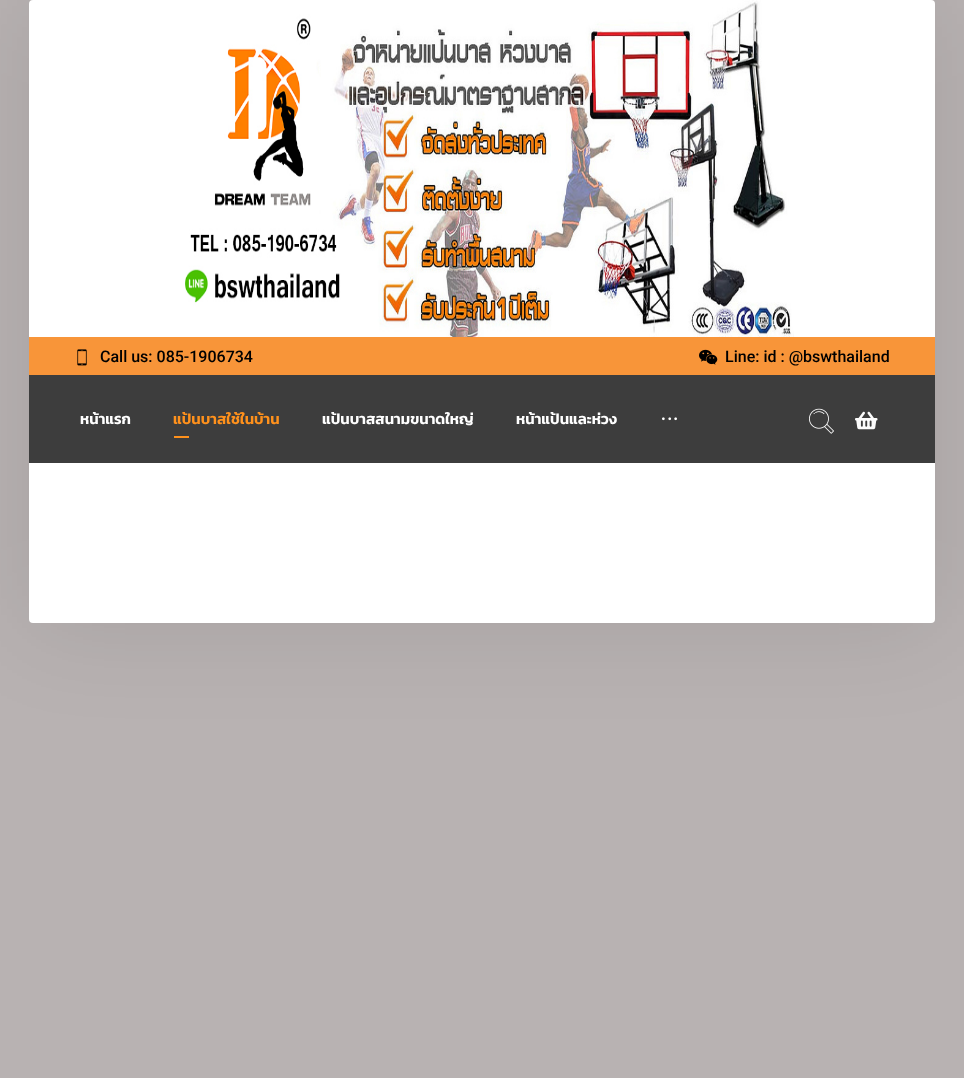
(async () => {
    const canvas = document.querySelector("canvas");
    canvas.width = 964;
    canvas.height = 1078;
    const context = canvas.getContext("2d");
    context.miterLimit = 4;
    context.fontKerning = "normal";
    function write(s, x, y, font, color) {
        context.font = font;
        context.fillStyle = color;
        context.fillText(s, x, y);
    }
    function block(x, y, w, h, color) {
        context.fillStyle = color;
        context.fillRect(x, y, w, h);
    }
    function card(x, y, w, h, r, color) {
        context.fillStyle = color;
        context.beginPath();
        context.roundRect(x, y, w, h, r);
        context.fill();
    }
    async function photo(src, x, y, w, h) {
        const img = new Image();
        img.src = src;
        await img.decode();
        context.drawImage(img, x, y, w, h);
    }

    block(0, 0, 964, 1078, "rgb(184, 178, 178)");
    context.fillStyle = "rgba(0, 0, 0, 0.1)";
    context.filter = "blur(50px)";
    context.beginPath();
    context.roundRect(29, 0, 906, 623, 4);
    context.fill();
    context.filter = "none";
    card(29, 0, 906, 623, 4, "rgb(255, 255, 255)");
    await photo("media/1.png", 185, 0, 609, 337);
    block(29, 337, 906, 38, "rgb(248, 149, 57)");
    await photo("media/2.png", 77, 349, 10, 17);
    write("Call us: 085-1906734", 100, 362, "500 16px Roboto", "rgb(0, 0, 0)");
    await photo("media/3.png", 699, 349, 19, 16);
    write("Line: id : @bswthailand", 725, 362, "500 16px Roboto", "rgb(0, 0, 0)");
    block(29, 375, 906, 88, "rgb(61, 61, 61)");
    write("หน้าแรก", 80, 424, "600 15px Kanit", "rgb(255, 255, 255)");
    write("แป้นบาสใช้ในบ้าน", 173, 424, "600 15px Kanit", "rgb(255, 145, 28)");
    block(174, 436, 15, 2, "rgb(255, 145, 28)");
    write("แป้นบาสสนามขนาดใหญ่", 322, 424, "600 15px Kanit", "rgb(255, 255, 255)");
    write("หน้าแป้นและห่วง", 516, 424, "600 15px Kanit", "rgb(255, 255, 255)");
    await photo("media/4.png", 662, 417, 15, 4);
    await photo("media/5.png", 809, 408, 25, 26);
    await photo("media/6.png", 855, 411, 23, 19);
})();
